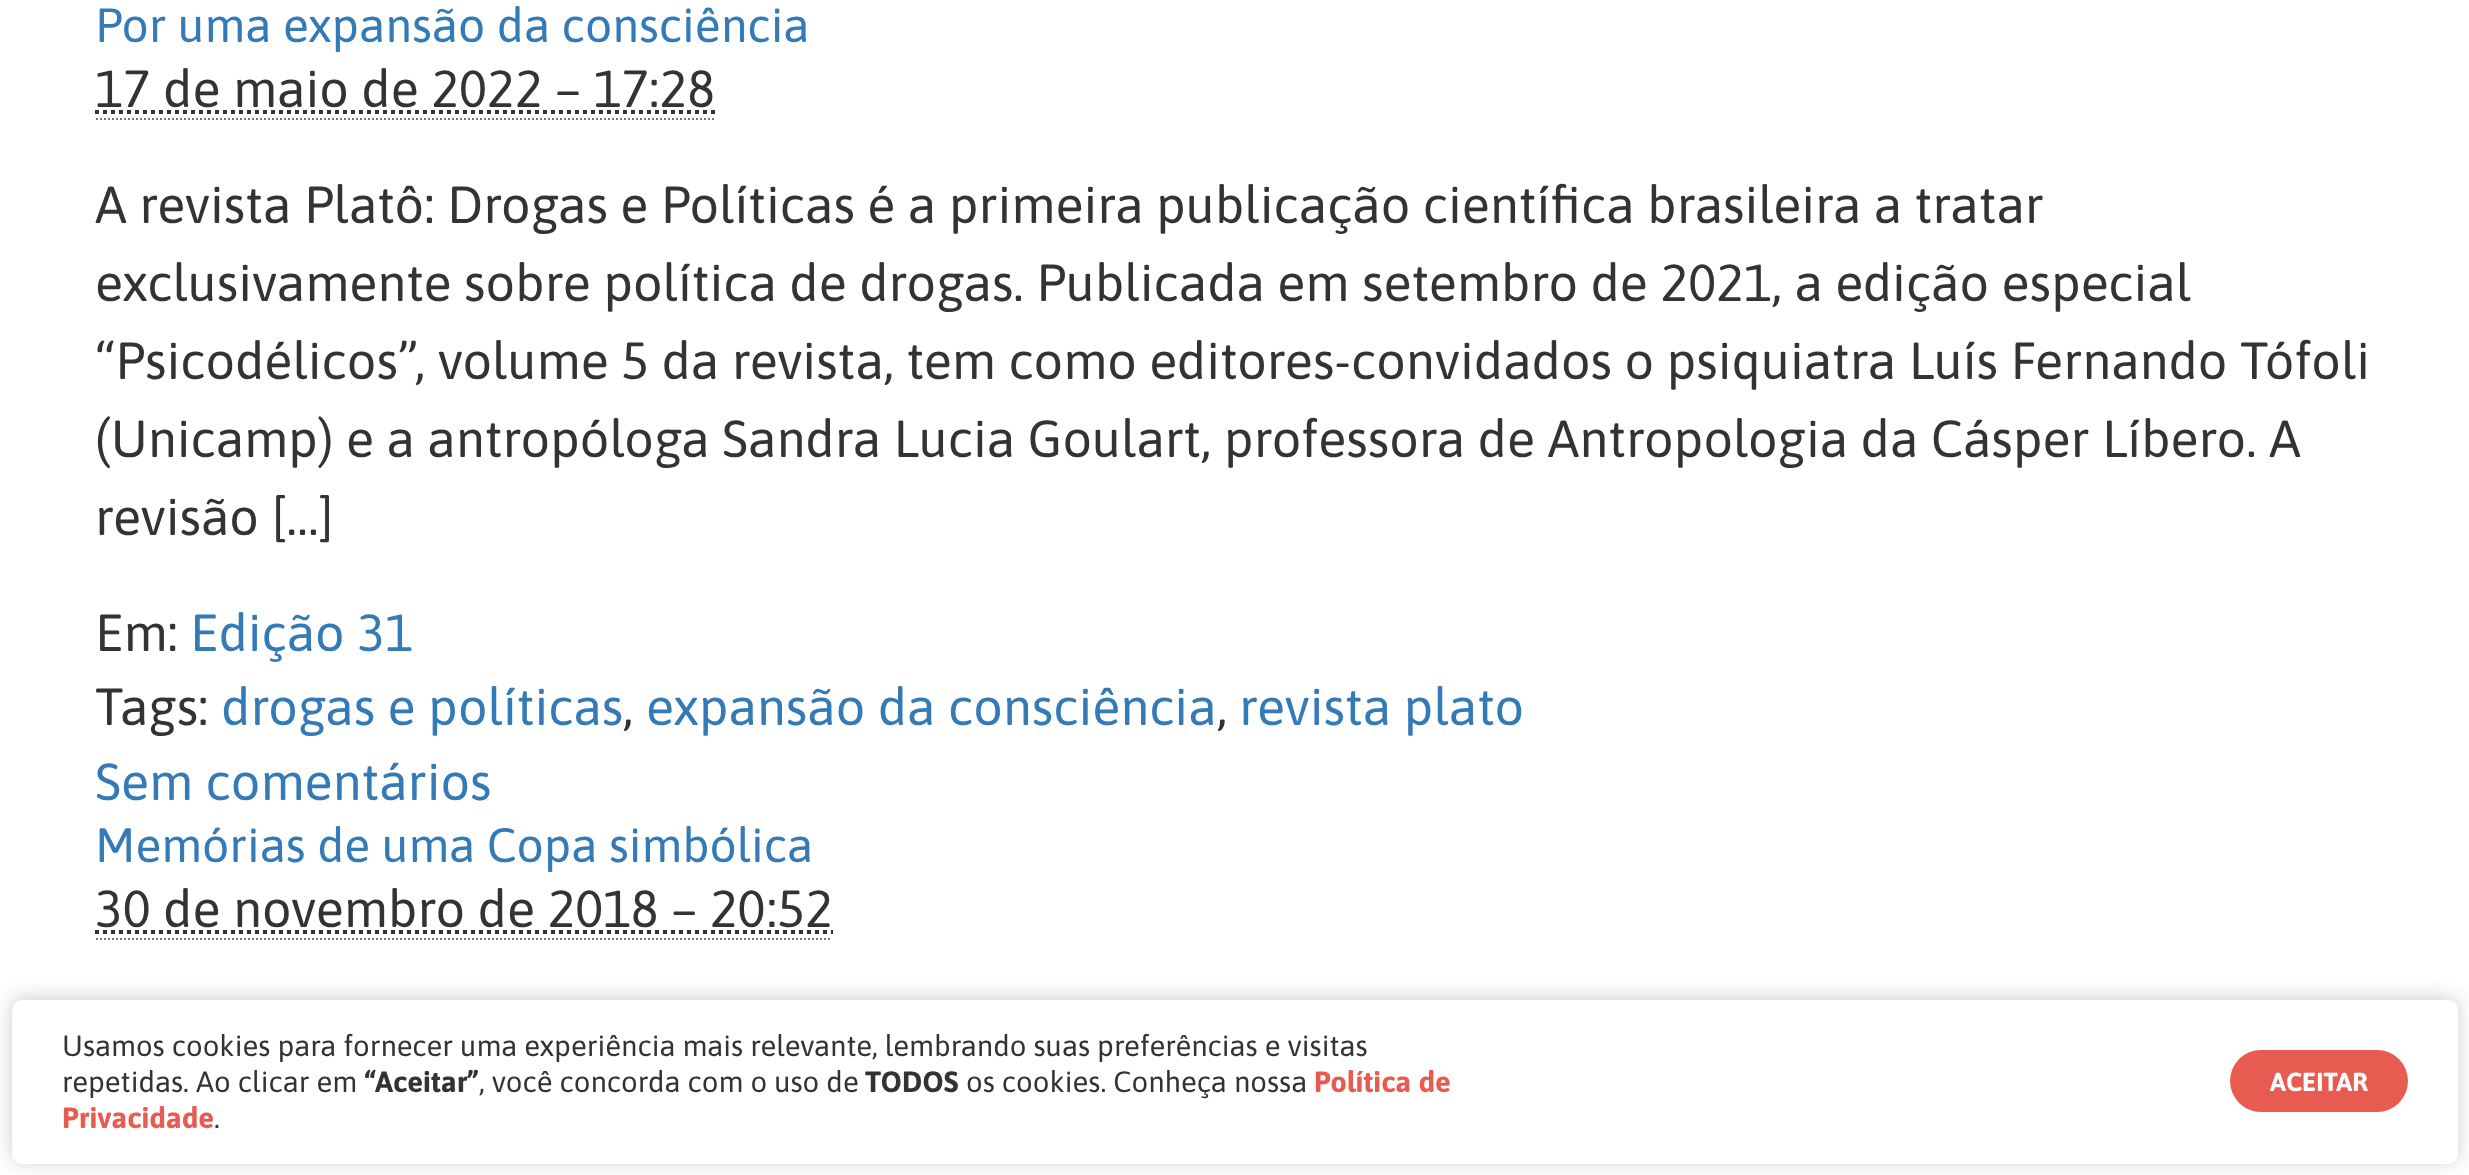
(async () => {
    const canvas = document.querySelector("canvas");
    canvas.width = 2469;
    canvas.height = 1175;
    const context = canvas.getContext("2d");
    context.miterLimit = 4;
    context.fontKerning = "normal";
    function write(s, x, y, font, color) {
        context.font = font;
        context.fillStyle = color;
        context.fillText(s, x, y);
    }
    function block(x, y, w, h, color) {
        context.fillStyle = color;
        context.fillRect(x, y, w, h);
    }
    function card(x, y, w, h, r, color) {
        context.fillStyle = color;
        context.beginPath();
        context.roundRect(x, y, w, h, r);
        context.fill();
    }

    block(0, 0, 2469, 1175, "rgb(255, 255, 255)");
    write("Por uma expansão da consciência", 95, 42, "48px Asap", "rgb(51, 122, 183)");
    write("17 de maio de 2022 – 17:28", 95, 107, "52px Asap", "rgb(51, 51, 51)");
    context.beginPath();
    context.moveTo(96, 119);
    context.lineTo(716, 119);
    context.strokeStyle = "rgb(119, 119, 119)";
    context.lineWidth = 2;
    context.setLineDash([2, 2]);
    context.stroke();
    context.beginPath();
    context.moveTo(95, 112);
    context.lineTo(715, 112);
    context.strokeStyle = "rgb(51, 51, 51)";
    context.lineWidth = 4;
    context.setLineDash([4, 4]);
    context.stroke();
    write("A revista Platô: Drogas e Políticas é a primeira publicação científica brasileira a tratar", 95, 223, "52px Asap", "rgb(51, 51, 51)");
    write("exclusivamente sobre política de drogas. Publicada em setembro de 2021, a edição especial", 95, 301, "52px Asap", "rgb(51, 51, 51)");
    write("“Psicodélicos”, volume 5 da revista, tem como editores-convidados o psiquiatra Luís Fernando Tófoli", 95, 379, "52px Asap", "rgb(51, 51, 51)");
    write("(Unicamp) e a antropóloga Sandra Lucia Goulart, professora de Antropologia da Cásper Líbero. A", 95, 457, "52px Asap", "rgb(51, 51, 51)");
    write("revisão […]", 95, 535, "52px Asap", "rgb(51, 51, 51)");
    write("Em:", 95, 651, "52px Asap", "rgb(51, 51, 51)");
    write("Edição 31", 190, 651, "52px Asap", "rgb(51, 122, 183)");
    write("Tags:", 95, 725, "52px Asap", "rgb(51, 51, 51)");
    write("drogas e políticas", 221, 725, "52px Asap", "rgb(51, 122, 183)");
    write(",", 623, 725, "52px Asap", "rgb(51, 51, 51)");
    write("expansão da consciência", 646, 725, "52px Asap", "rgb(51, 122, 183)");
    write(",", 1217, 725, "52px Asap", "rgb(51, 51, 51)");
    write("revista plato", 1239, 725, "52px Asap", "rgb(51, 122, 183)");
    write("Sem comentários", 95, 800, "52px Asap", "rgb(51, 122, 183)");
    write("Memórias de uma Copa simbólica", 95, 862, "48px Asap", "rgb(51, 122, 183)");
    write("30 de novembro de 2018 – 20:52", 95, 927, "52px Asap", "rgb(51, 51, 51)");
    context.beginPath();
    context.moveTo(96, 939);
    context.lineTo(832, 939);
    context.strokeStyle = "rgb(119, 119, 119)";
    context.lineWidth = 2;
    context.setLineDash([2, 2]);
    context.stroke();
    context.beginPath();
    context.moveTo(95, 932);
    context.lineTo(833, 932);
    context.strokeStyle = "rgb(51, 51, 51)";
    context.lineWidth = 4;
    context.setLineDash([4, 4]);
    context.stroke();
    context.fillStyle = "rgba(172, 171, 171, 0.6)";
    context.filter = "blur(10px)";
    context.beginPath();
    context.roundRect(12, 998, 2446, 164, 10);
    context.fill();
    context.filter = "none";
    card(12, 1000, 2446, 164, 10, "rgb(255, 255, 255)");
    write("Usamos cookies para fornecer uma experiência mais relevante, lembrando suas preferências e visitas", 62, 1056, "29.35px Asap", "rgb(51, 51, 51)");
    write("repetidas. Ao clicar em", 62, 1092, "29.35px Asap", "rgb(51, 51, 51)");
    write("“Aceitar”", 364, 1092, "bold 29.35px Asap", "rgb(51, 51, 51)");
    write(", você concorda com o uso de", 479, 1092, "29.35px Asap", "rgb(51, 51, 51)");
    write("TODOS", 865, 1092, "bold 29.35px Asap", "rgb(51, 51, 51)");
    write("os cookies. Conheça nossa", 966, 1092, "29.35px Asap", "rgb(51, 51, 51)");
    write("Política de", 1314, 1092, "bold 29.35px Asap", "rgb(232, 91, 81)");
    write("Privacidade", 62, 1128, "bold 29.35px Asap", "rgb(232, 91, 81)");
    write(".", 214, 1128, "29.35px Asap", "rgb(51, 51, 51)");
    card(2230, 1050, 178, 62, 31, "rgb(232, 91, 81)");
    write("ACEITAR", 2270, 1091, "bold 26px Asap", "rgb(255, 255, 255)");
})();
